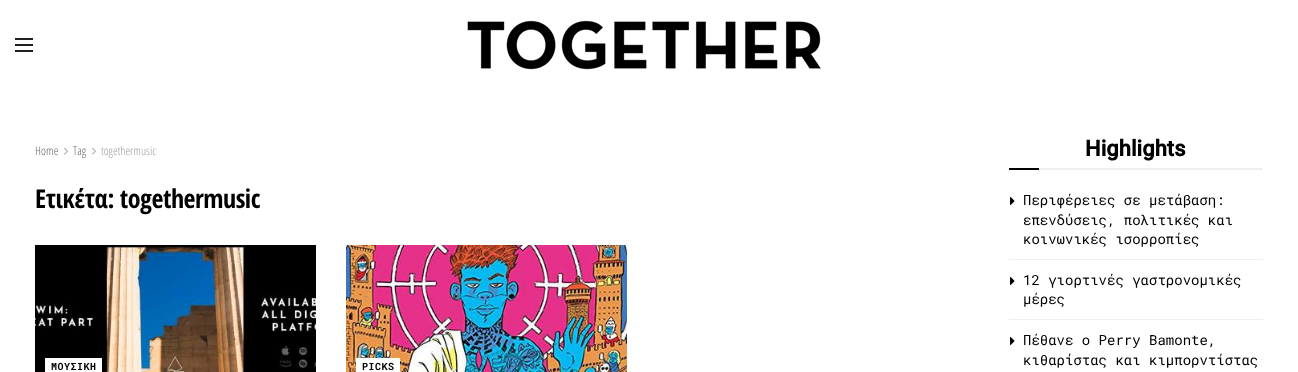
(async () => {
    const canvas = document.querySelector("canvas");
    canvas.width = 1298;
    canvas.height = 372;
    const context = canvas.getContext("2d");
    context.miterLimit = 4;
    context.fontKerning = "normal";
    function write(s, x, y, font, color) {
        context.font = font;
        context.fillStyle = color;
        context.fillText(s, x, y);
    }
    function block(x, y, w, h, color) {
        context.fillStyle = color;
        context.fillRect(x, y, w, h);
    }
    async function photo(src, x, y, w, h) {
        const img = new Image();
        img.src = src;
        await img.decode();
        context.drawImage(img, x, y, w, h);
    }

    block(0, 0, 1298, 372, "rgb(255, 255, 255)");
    block(15, 38, 18, 2, "rgb(33, 33, 33)");
    block(15, 44, 18, 2, "rgb(33, 33, 33)");
    block(15, 50, 18, 2, "rgb(33, 33, 33)");
    await photo("media/1.png", 467, 20, 354, 50);
    write("Home", 35, 155, "300 12px Open Sans Condensed", "rgb(102, 102, 102)");
    await photo("media/2.png", 64, 147, 4, 8);
    write("Tag", 73, 155, "300 12px Open Sans Condensed", "rgb(102, 102, 102)");
    await photo("media/2.png", 92, 147, 4, 8);
    write("togethermusic", 101, 155, "300 12px Open Sans Condensed", "rgb(160, 160, 160)");
    context.letterSpacing = "-0.5px";
    write("Ετικέτα: togethermusic", 35, 208, "bold 26px Open Sans Condensed", "rgb(0, 0, 0)");
    await photo("media/3.png", 35, 245, 281, 127);
    block(45, 358, 57, 14, "rgb(255, 255, 255)");
    context.letterSpacing = "0.5px";
    write("ΜΟΥΣΙΚΗ", 51, 370, "bold 10px Roboto Mono", "rgb(0, 0, 0)");
    await photo("media/4.png", 346, 245, 281, 127);
    block(356, 358, 44, 14, "rgb(255, 255, 255)");
    write("PICKS", 362, 370, "bold 10px Roboto Mono", "rgb(0, 0, 0)");
    block(1039, 168, 224, 2, "rgb(238, 238, 238)");
    context.letterSpacing = "0px";
    write("Highlights", 1085, 156, "bold 22px Roboto", "rgb(0, 0, 0)");
    block(1009, 168, 30, 2, "rgb(0, 0, 0)");
    block(1009, 259, 254, 1, "rgb(238, 238, 238)");
    await photo("media/5.png", 1010, 197, 5, 8);
    write("Περιφέρειες σε μετάβαση:", 1023, 205, "14px Roboto Mono", "rgb(0, 0, 0)");
    write("επενδύσεις, πολιτικές και", 1023, 225, "14px Roboto Mono", "rgb(0, 0, 0)");
    write("κοινωνικές ισορροπίες", 1023, 244, "14px Roboto Mono", "rgb(0, 0, 0)");
    block(1009, 319, 254, 1, "rgb(238, 238, 238)");
    await photo("media/5.png", 1010, 277, 5, 8);
    write("12 γιορτινές γαστρονομικές", 1023, 285, "14px Roboto Mono", "rgb(0, 0, 0)");
    write("μέρες", 1023, 304, "14px Roboto Mono", "rgb(0, 0, 0)");
    await photo("media/5.png", 1010, 337, 5, 8);
    write("Πέθανε ο Perry Bamonte,", 1023, 345, "14px Roboto Mono", "rgb(0, 0, 0)");
    write("κιθαρίστας και κιμπορντίστας", 1023, 365, "14px Roboto Mono", "rgb(0, 0, 0)");
})();
